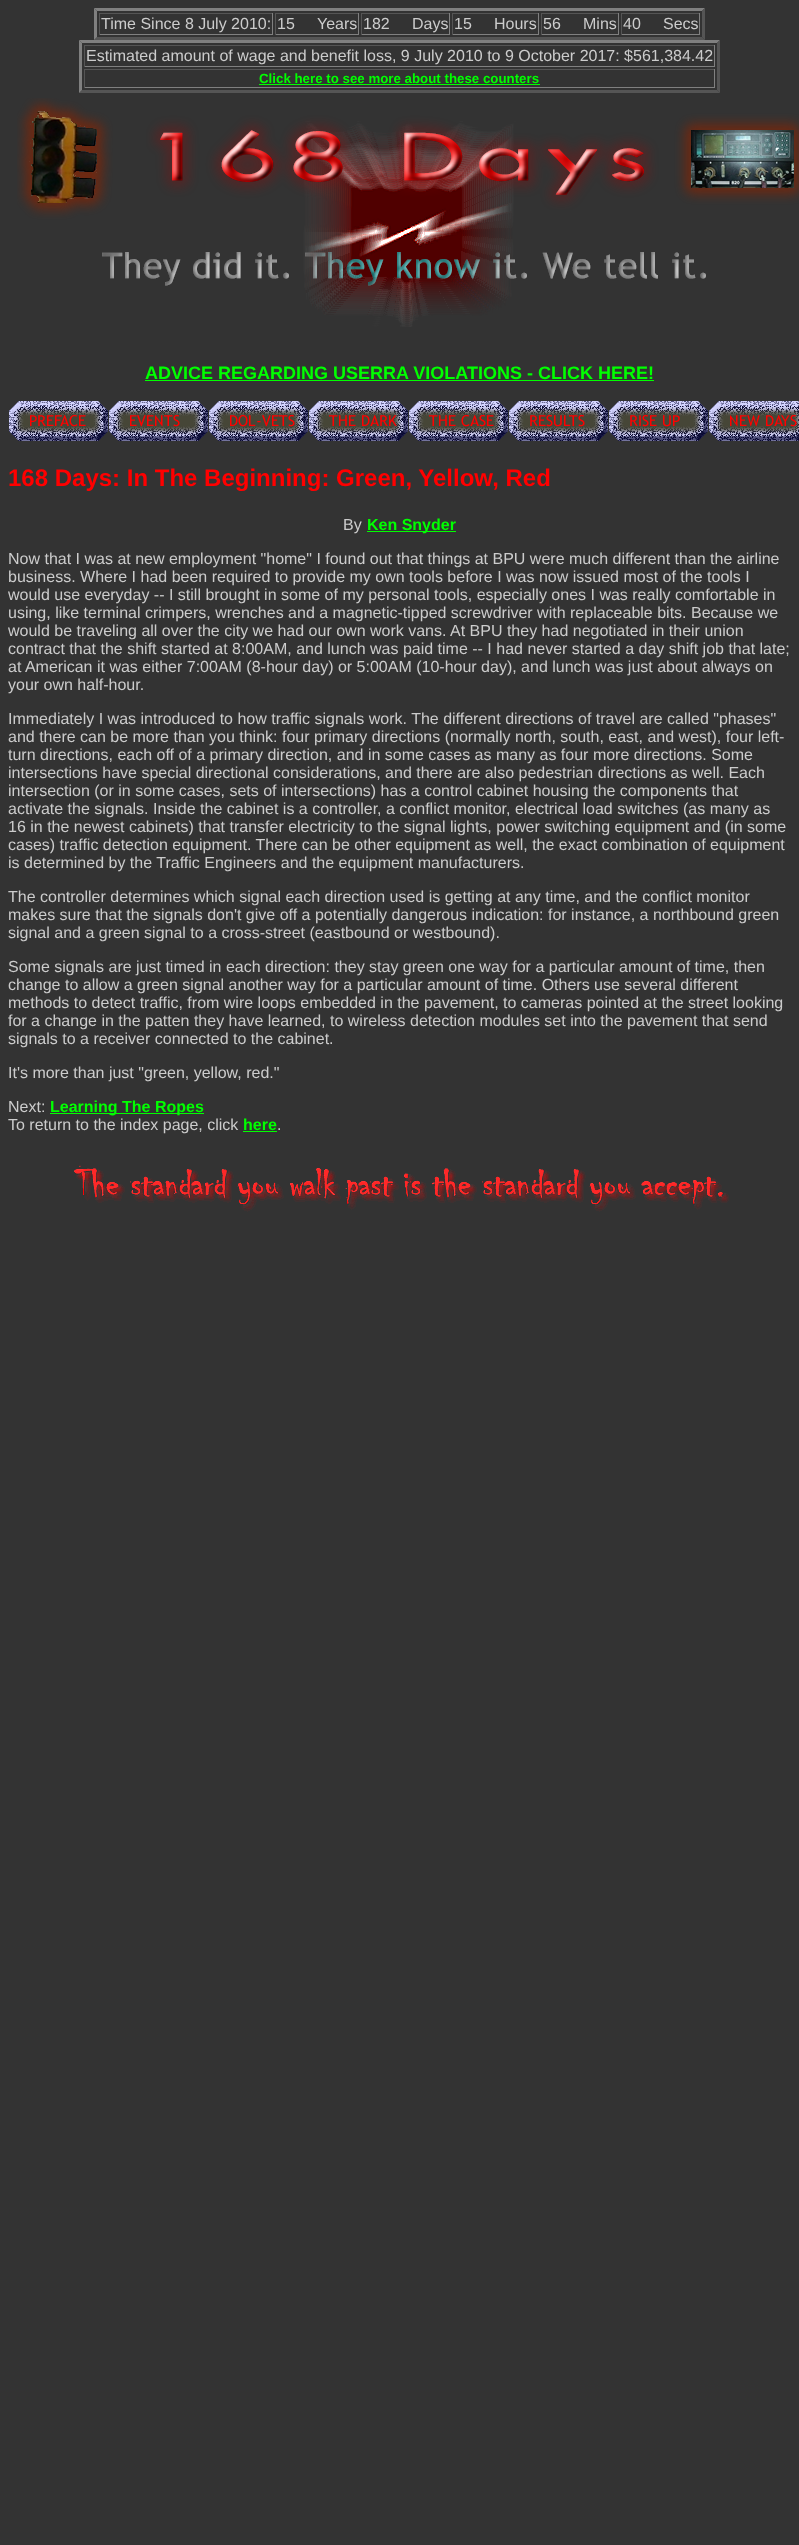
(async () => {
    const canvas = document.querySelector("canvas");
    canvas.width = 799;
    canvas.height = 2545;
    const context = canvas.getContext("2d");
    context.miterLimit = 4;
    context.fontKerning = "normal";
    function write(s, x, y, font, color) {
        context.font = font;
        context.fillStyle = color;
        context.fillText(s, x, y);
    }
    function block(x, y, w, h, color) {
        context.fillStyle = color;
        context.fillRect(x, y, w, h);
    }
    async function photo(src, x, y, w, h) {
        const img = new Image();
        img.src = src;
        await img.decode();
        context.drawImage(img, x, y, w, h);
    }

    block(0, 0, 799, 2545, "rgb(51, 51, 51)");
    context.fillStyle = "rgb(128, 128, 128)";
    context.beginPath();
    context.moveTo(94, 8);
    context.lineTo(705, 8);
    context.lineTo(702, 11);
    context.lineTo(97, 11);
    context.closePath();
    context.fill();
    context.fillStyle = "rgb(85, 85, 85)";
    context.beginPath();
    context.moveTo(705, 8);
    context.lineTo(705, 40);
    context.lineTo(702, 37);
    context.lineTo(702, 11);
    context.closePath();
    context.fill();
    context.beginPath();
    context.moveTo(705, 40);
    context.lineTo(94, 40);
    context.lineTo(97, 37);
    context.lineTo(702, 37);
    context.closePath();
    context.fill();
    context.fillStyle = "rgb(128, 128, 128)";
    context.beginPath();
    context.moveTo(94, 40);
    context.lineTo(94, 8);
    context.lineTo(97, 11);
    context.lineTo(97, 37);
    context.closePath();
    context.fill();
    block(99, 13, 174, 1, "rgb(85, 85, 85)");
    block(272, 13, 1, 22, "rgb(128, 128, 128)");
    block(99, 34, 174, 1, "rgb(128, 128, 128)");
    block(99, 13, 1, 22, "rgb(85, 85, 85)");
    write("Time Since 8 July 2010:", 101, 29, "16px Liberation Sans", "rgb(204, 204, 204)");
    block(275, 13, 84, 1, "rgb(85, 85, 85)");
    block(358, 13, 1, 22, "rgb(128, 128, 128)");
    block(275, 34, 84, 1, "rgb(128, 128, 128)");
    block(275, 13, 1, 22, "rgb(85, 85, 85)");
    write("15", 277, 29, "16px Liberation Sans", "rgb(204, 204, 204)");
    write("Years", 317, 29, "16px Liberation Sans", "rgb(204, 204, 204)");
    block(361, 13, 89, 1, "rgb(85, 85, 85)");
    block(449, 13, 1, 22, "rgb(128, 128, 128)");
    block(361, 34, 89, 1, "rgb(128, 128, 128)");
    block(361, 13, 1, 22, "rgb(85, 85, 85)");
    write("182", 363, 29, "16px Liberation Sans", "rgb(204, 204, 204)");
    write("Days", 412, 29, "16px Liberation Sans", "rgb(204, 204, 204)");
    block(452, 13, 87, 1, "rgb(85, 85, 85)");
    block(538, 13, 1, 22, "rgb(128, 128, 128)");
    block(452, 34, 87, 1, "rgb(128, 128, 128)");
    block(452, 13, 1, 22, "rgb(85, 85, 85)");
    write("15", 454, 29, "16px Liberation Sans", "rgb(204, 204, 204)");
    write("Hours", 494, 29, "16px Liberation Sans", "rgb(204, 204, 204)");
    block(541, 13, 78, 1, "rgb(85, 85, 85)");
    block(618, 13, 1, 22, "rgb(128, 128, 128)");
    block(541, 34, 78, 1, "rgb(128, 128, 128)");
    block(541, 13, 1, 22, "rgb(85, 85, 85)");
    write("56", 543, 29, "16px Liberation Sans", "rgb(204, 204, 204)");
    write("Mins", 583, 29, "16px Liberation Sans", "rgb(204, 204, 204)");
    block(621, 13, 79, 1, "rgb(85, 85, 85)");
    block(699, 13, 1, 22, "rgb(128, 128, 128)");
    block(621, 34, 79, 1, "rgb(128, 128, 128)");
    block(621, 13, 1, 22, "rgb(85, 85, 85)");
    write("40", 623, 29, "16px Liberation Sans", "rgb(204, 204, 204)");
    write("Secs", 663, 29, "16px Liberation Sans", "rgb(204, 204, 204)");
    context.fillStyle = "rgb(128, 128, 128)";
    context.beginPath();
    context.moveTo(79, 40);
    context.lineTo(720, 40);
    context.lineTo(717, 43);
    context.lineTo(82, 43);
    context.closePath();
    context.fill();
    context.fillStyle = "rgb(85, 85, 85)";
    context.beginPath();
    context.moveTo(720, 40);
    context.lineTo(720, 93);
    context.lineTo(717, 90);
    context.lineTo(717, 43);
    context.closePath();
    context.fill();
    context.beginPath();
    context.moveTo(720, 93);
    context.lineTo(79, 93);
    context.lineTo(82, 90);
    context.lineTo(717, 90);
    context.closePath();
    context.fill();
    context.fillStyle = "rgb(128, 128, 128)";
    context.beginPath();
    context.moveTo(79, 93);
    context.lineTo(79, 40);
    context.lineTo(82, 43);
    context.lineTo(82, 90);
    context.closePath();
    context.fill();
    block(84, 45, 631, 1, "rgb(85, 85, 85)");
    block(714, 45, 1, 22, "rgb(128, 128, 128)");
    block(84, 66, 631, 1, "rgb(128, 128, 128)");
    block(84, 45, 1, 22, "rgb(85, 85, 85)");
    write("Estimated amount of wage and benefit loss, 9 July 2010 to 9 October 2017: $561,384.42", 86, 61, "16px Liberation Sans", "rgb(204, 204, 204)");
    block(84, 69, 631, 1, "rgb(85, 85, 85)");
    block(714, 69, 1, 19, "rgb(128, 128, 128)");
    block(84, 87, 631, 1, "rgb(128, 128, 128)");
    block(84, 69, 1, 19, "rgb(85, 85, 85)");
    write("Click here to see more about these counters", 259, 83, "bold 13.3px Liberation Sans", "rgb(0, 255, 0)");
    block(259, 84, 281, 1, "rgb(0, 255, 0)");
    await photo("media/1.png", 17, 98, 782, 229);
    write("ADVICE REGARDING USERRA VIOLATIONS - CLICK HERE!", 145, 379, "bold 18px Liberation Sans", "rgb(0, 255, 0)");
    block(145, 380, 509, 1, "rgb(0, 255, 0)");
    await photo("media/2.png", 9, 401, 99, 40);
    await photo("media/3.png", 109, 401, 99, 40);
    await photo("media/4.png", 209, 401, 99, 40);
    await photo("media/5.png", 309, 401, 99, 40);
    await photo("media/6.png", 409, 401, 99, 40);
    await photo("media/7.png", 509, 401, 99, 40);
    await photo("media/8.png", 609, 401, 99, 40);
    await photo("media/9.png", 709, 401, 90, 40);
    write("168 Days: In The Beginning: Green, Yellow, Red", 8, 486, "bold 24px Liberation Sans", "rgb(255, 0, 0)");
    write("By", 343, 530, "16px Liberation Sans", "rgb(204, 204, 204)");
    block(367, 531, 89, 1, "rgb(0, 255, 0)");
    write("Ken Snyder", 367, 530, "bold 16px Liberation Sans", "rgb(0, 255, 0)");
    write("Now that I was at new employment \"home\" I found out that things at BPU were much different than the airline", 8, 564, "16px Liberation Sans", "rgb(204, 204, 204)");
    write("business. Where I had been required to provide my own tools before I was now issued most of the tools I", 8, 582, "16px Liberation Sans", "rgb(204, 204, 204)");
    write("would use everyday -- I still brought in some of my personal tools, especially ones I was really comfortable in", 8, 600, "16px Liberation Sans", "rgb(204, 204, 204)");
    write("using, like terminal crimpers, wrenches and a magnetic-tipped screwdriver with replaceable bits. Because we", 8, 618, "16px Liberation Sans", "rgb(204, 204, 204)");
    write("would be traveling all over the city we had our own work vans. At BPU they had negotiated in their union", 8, 636, "16px Liberation Sans", "rgb(204, 204, 204)");
    write("contract that the shift started at 8:00AM, and lunch was paid time -- I had never started a day shift job that late;", 8, 654, "16px Liberation Sans", "rgb(204, 204, 204)");
    write("at American it was either 7:00AM (8-hour day) or 5:00AM (10-hour day), and lunch was just about always on", 8, 672, "16px Liberation Sans", "rgb(204, 204, 204)");
    write("your own half-hour.", 8, 690, "16px Liberation Sans", "rgb(204, 204, 204)");
    write("Immediately I was introduced to how traffic signals work. The different directions of travel are called \"phases\"", 8, 724, "16px Liberation Sans", "rgb(204, 204, 204)");
    write("and there can be more than you think: four primary directions (normally north, south, east, and west), four left-", 8, 742, "16px Liberation Sans", "rgb(204, 204, 204)");
    write("turn directions, each off of a primary direction, and in some cases as many as four more directions. Some", 8, 760, "16px Liberation Sans", "rgb(204, 204, 204)");
    write("intersections have special directional considerations, and there are also pedestrian directions as well. Each", 8, 778, "16px Liberation Sans", "rgb(204, 204, 204)");
    write("intersection (or in some cases, sets of intersections) has a control cabinet housing the components that", 8, 796, "16px Liberation Sans", "rgb(204, 204, 204)");
    write("activate the signals. Inside the cabinet is a controller, a conflict monitor, electrical load switches (as many as", 8, 814, "16px Liberation Sans", "rgb(204, 204, 204)");
    write("16 in the newest cabinets) that transfer electricity to the signal lights, power switching equipment and (in some", 8, 832, "16px Liberation Sans", "rgb(204, 204, 204)");
    write("cases) traffic detection equipment. There can be other equipment as well, the exact combination of equipment", 8, 850, "16px Liberation Sans", "rgb(204, 204, 204)");
    write("is determined by the Traffic Engineers and the equipment manufacturers.", 8, 868, "16px Liberation Sans", "rgb(204, 204, 204)");
    write("The controller determines which signal each direction used is getting at any time, and the conflict monitor", 8, 902, "16px Liberation Sans", "rgb(204, 204, 204)");
    write("makes sure that the signals don't give off a potentially dangerous indication: for instance, a northbound green", 8, 920, "16px Liberation Sans", "rgb(204, 204, 204)");
    write("signal and a green signal to a cross-street (eastbound or westbound).", 8, 938, "16px Liberation Sans", "rgb(204, 204, 204)");
    write("Some signals are just timed in each direction: they stay green one way for a particular amount of time, then", 8, 972, "16px Liberation Sans", "rgb(204, 204, 204)");
    write("change to allow a green signal another way for a particular amount of time. Others use several different", 8, 990, "16px Liberation Sans", "rgb(204, 204, 204)");
    write("methods to detect traffic, from wire loops embedded in the pavement, to cameras pointed at the street looking", 8, 1008, "16px Liberation Sans", "rgb(204, 204, 204)");
    write("for a change in the patten they have learned, to wireless detection modules set into the pavement that send", 8, 1026, "16px Liberation Sans", "rgb(204, 204, 204)");
    write("signals to a receiver connected to the cabinet.", 8, 1044, "16px Liberation Sans", "rgb(204, 204, 204)");
    write("It's more than just \"green, yellow, red.\"", 8, 1078, "16px Liberation Sans", "rgb(204, 204, 204)");
    write("Next:", 8, 1112, "16px Liberation Sans", "rgb(204, 204, 204)");
    block(50, 1113, 154, 1, "rgb(0, 255, 0)");
    write("Learning The Ropes", 50, 1112, "bold 16px Liberation Sans", "rgb(0, 255, 0)");
    write("To return to the index page, click", 8, 1130, "16px Liberation Sans", "rgb(204, 204, 204)");
    write("here", 243, 1130, "bold 16px Liberation Sans", "rgb(0, 255, 0)");
    block(243, 1131, 34, 1, "rgb(0, 255, 0)");
    write(".", 277, 1130, "16px Liberation Sans", "rgb(204, 204, 204)");
    await photo("media/10.png", 74, 1165, 655, 47);
})();
